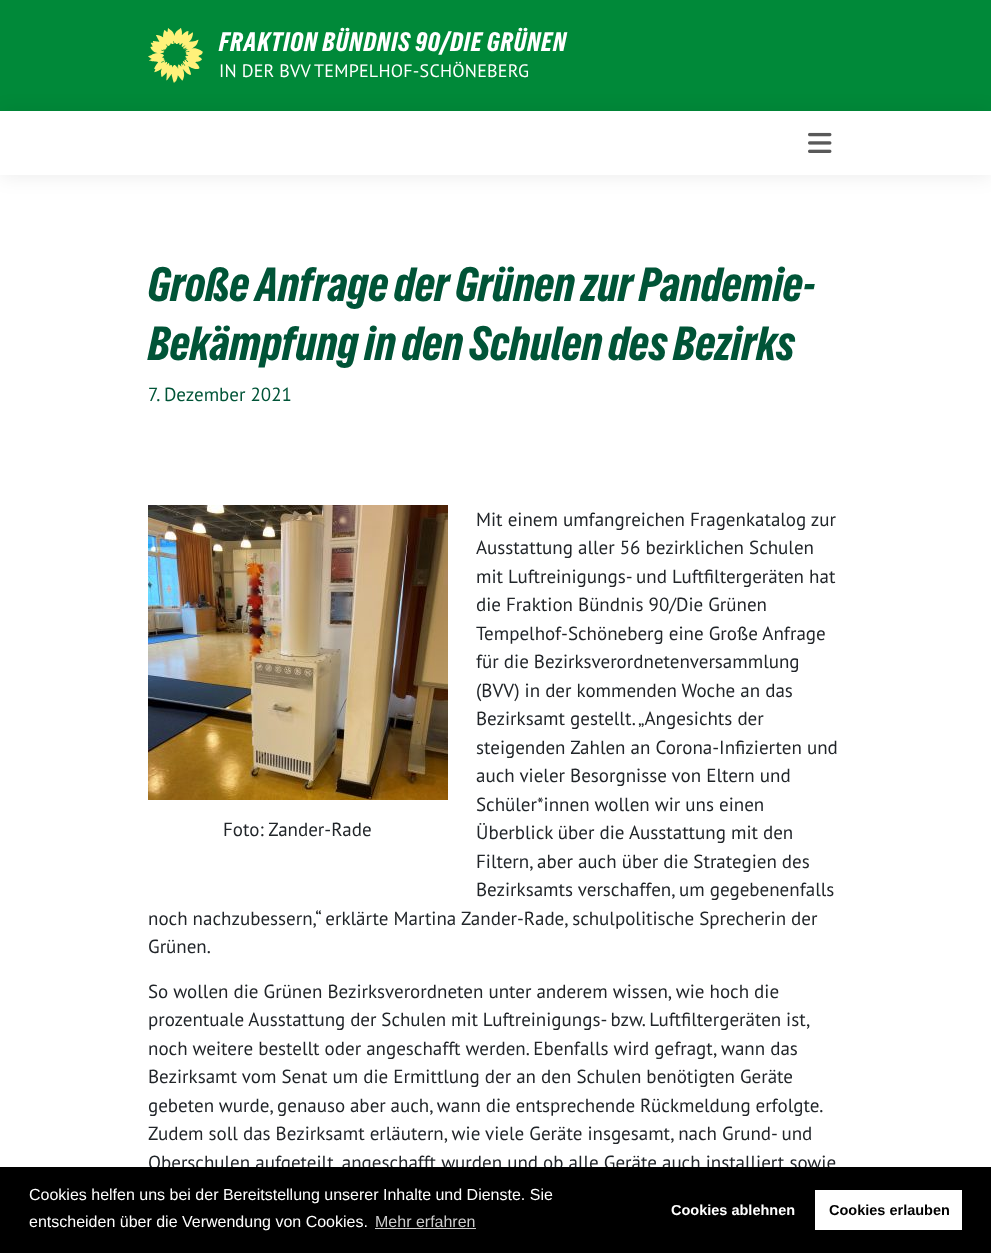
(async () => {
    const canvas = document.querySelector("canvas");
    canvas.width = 991;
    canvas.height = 1253;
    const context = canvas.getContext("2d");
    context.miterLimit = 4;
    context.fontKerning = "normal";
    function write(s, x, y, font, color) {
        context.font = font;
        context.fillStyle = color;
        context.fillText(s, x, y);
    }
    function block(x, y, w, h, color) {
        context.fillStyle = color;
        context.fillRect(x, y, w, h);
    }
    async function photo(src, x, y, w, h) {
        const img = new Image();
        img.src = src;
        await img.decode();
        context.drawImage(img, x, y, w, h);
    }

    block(0, 0, 991, 1253, "rgb(255, 255, 255)");
    block(0, 0, 991, 111, "rgb(0, 137, 57)");
    await photo("media/1.png", 148, 28, 55, 55);
    context.letterSpacing = "1px";
    write("FRAKTION BÜNDNIS 90/DIE GRÜNEN", 219, 51, "25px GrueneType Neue", "rgb(255, 255, 255)");
    context.letterSpacing = "0.25px";
    context.wordSpacing = "-0.25px";
    write("IN DER BVV", 219, 77, "18px PT Sans", "rgb(255, 255, 255)");
    context.wordSpacing = "0px";
    write("TEMPELHOF-SCHÖNEBERG", 314, 77, "18px PT Sans", "rgb(255, 255, 255)");
    context.save();
    context.beginPath();
    context.moveTo(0, 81);
    context.lineTo(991, 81);
    context.lineTo(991, 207);
    context.lineTo(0, 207);
    context.closePath();
    context.moveTo(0, 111);
    context.lineTo(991, 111);
    context.lineTo(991, 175);
    context.lineTo(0, 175);
    context.closePath();
    context.clip("evenodd");
    context.fillStyle = "rgba(0, 0, 0, 0.08)";
    context.filter = "blur(10px)";
    context.beginPath();
    context.rect(0, 112, 991, 64);
    context.fill();
    context.filter = "none";
    context.restore();
    await photo("media/2.png", 808, 132, 24, 21);
    context.letterSpacing = "0px";
    write("Große Anfrage der Grünen zur Pandemie-", 148, 301, "45px GrueneType Neue", "rgb(0, 84, 55)");
    write("Bekämpfung in den Schulen des Bezirks", 148, 360, "45px GrueneType Neue", "rgb(0, 84, 55)");
    write("7. Dezember 2021", 148, 401, "19px PT Sans", "rgb(0, 84, 55)");
    write("Mit einem umfangreichen Fragenkatalog zur", 476, 526, "19px PT Sans", "rgb(33, 37, 41)");
    write("Ausstattung aller 56 bezirklichen Schulen", 476, 554, "19px PT Sans", "rgb(33, 37, 41)");
    write("mit Luftreinigungs- und Luftfiltergeräten hat", 476, 583, "19px PT Sans", "rgb(33, 37, 41)");
    write("die Fraktion Bündnis 90/Die Grünen", 476, 611, "19px PT Sans", "rgb(33, 37, 41)");
    write("Tempelhof-Schöneberg eine Große Anfrage", 476, 640, "19px PT Sans", "rgb(33, 37, 41)");
    write("für die Bezirksverordnetenversammlung", 476, 668, "19px PT Sans", "rgb(33, 37, 41)");
    write("(BVV) in der kommenden Woche an das", 476, 697, "19px PT Sans", "rgb(33, 37, 41)");
    write("Bezirksamt gestellt. „Angesichts der", 476, 725, "19px PT Sans", "rgb(33, 37, 41)");
    write("steigenden Zahlen an Corona-Infizierten und", 476, 754, "19px PT Sans", "rgb(33, 37, 41)");
    write("auch vieler Besorgnisse von Eltern und", 476, 782, "19px PT Sans", "rgb(33, 37, 41)");
    write("Schüler*innen wollen wir uns einen", 476, 811, "19px PT Sans", "rgb(33, 37, 41)");
    write("Überblick über die Ausstattung mit den", 476, 839, "19px PT Sans", "rgb(33, 37, 41)");
    write("Filtern, aber auch über die Strategien des", 476, 868, "19px PT Sans", "rgb(33, 37, 41)");
    write("Bezirksamts verschaffen, um gegebenenfalls", 476, 896, "19px PT Sans", "rgb(33, 37, 41)");
    write("noch nachzubessern,“ erklärte Martina Zander-Rade, schulpolitische Sprecherin der", 148, 925, "19px PT Sans", "rgb(33, 37, 41)");
    write("Grünen.", 148, 953, "19px PT Sans", "rgb(33, 37, 41)");
    await photo("media/3.png", 148, 505, 300, 295);
    write("Foto: Zander-Rade", 223, 836, "19px PT Sans", "rgb(33, 37, 41)");
    write("So wollen die Grünen Bezirksverordneten unter anderem wissen, wie hoch die", 148, 998, "19px PT Sans", "rgb(33, 37, 41)");
    context.wordSpacing = "-0.25px";
    write("prozentuale Ausstattung der Schulen mit Luftreinigungs- bzw. Luftfiltergeräten ist,", 148, 1026, "19px PT Sans", "rgb(33, 37, 41)");
    context.wordSpacing = "0px";
    write("noch weitere bestellt oder angeschafft werden. Ebenfalls wird gefragt, wann das", 148, 1055, "19px PT Sans", "rgb(33, 37, 41)");
    write("Bezirksamt vom Senat um die Ermittlung der an den Schulen benötigten Geräte", 148, 1083, "19px PT Sans", "rgb(33, 37, 41)");
    context.wordSpacing = "-0.25px";
    write("gebeten wurde, genauso aber auch, wann die entsprechende Rückmeldung erfolgte.", 148, 1112, "19px PT Sans", "rgb(33, 37, 41)");
    context.wordSpacing = "0px";
    write("Zudem soll das Bezirksamt erläutern, wie viele Geräte insgesamt, nach Grund- und", 148, 1140, "19px PT Sans", "rgb(33, 37, 41)");
    write("Oberschulen aufgeteilt, angeschafft wurden und ob alle Geräte auch installiert sowie", 148, 1169, "19px PT Sans", "rgb(33, 37, 41)");
    block(0, 1167, 991, 86, "rgb(0, 0, 0)");
    write("Cookies helfen uns bei der Bereitstellung unserer Inhalte und Dienste. Sie", 29, 1200, "16px Liberation Sans", "rgb(255, 255, 255)");
    write("entscheiden über die Verwendung von Cookies.", 29, 1227, "16px Liberation Sans", "rgb(255, 255, 255)");
    write("Mehr erfahren", 375, 1227, "16px Liberation Sans", "rgb(204, 204, 204)");
    block(375, 1228, 101, 1, "rgb(204, 204, 204)");
    write("Cookies ablehnen", 671, 1215, "bold 14.5px Liberation Sans", "rgb(255, 255, 255)");
    block(815, 1190, 147, 40, "rgb(255, 255, 255)");
    write("Cookies erlauben", 829, 1215, "bold 14.5px Liberation Sans", "rgb(0, 0, 0)");
})();
